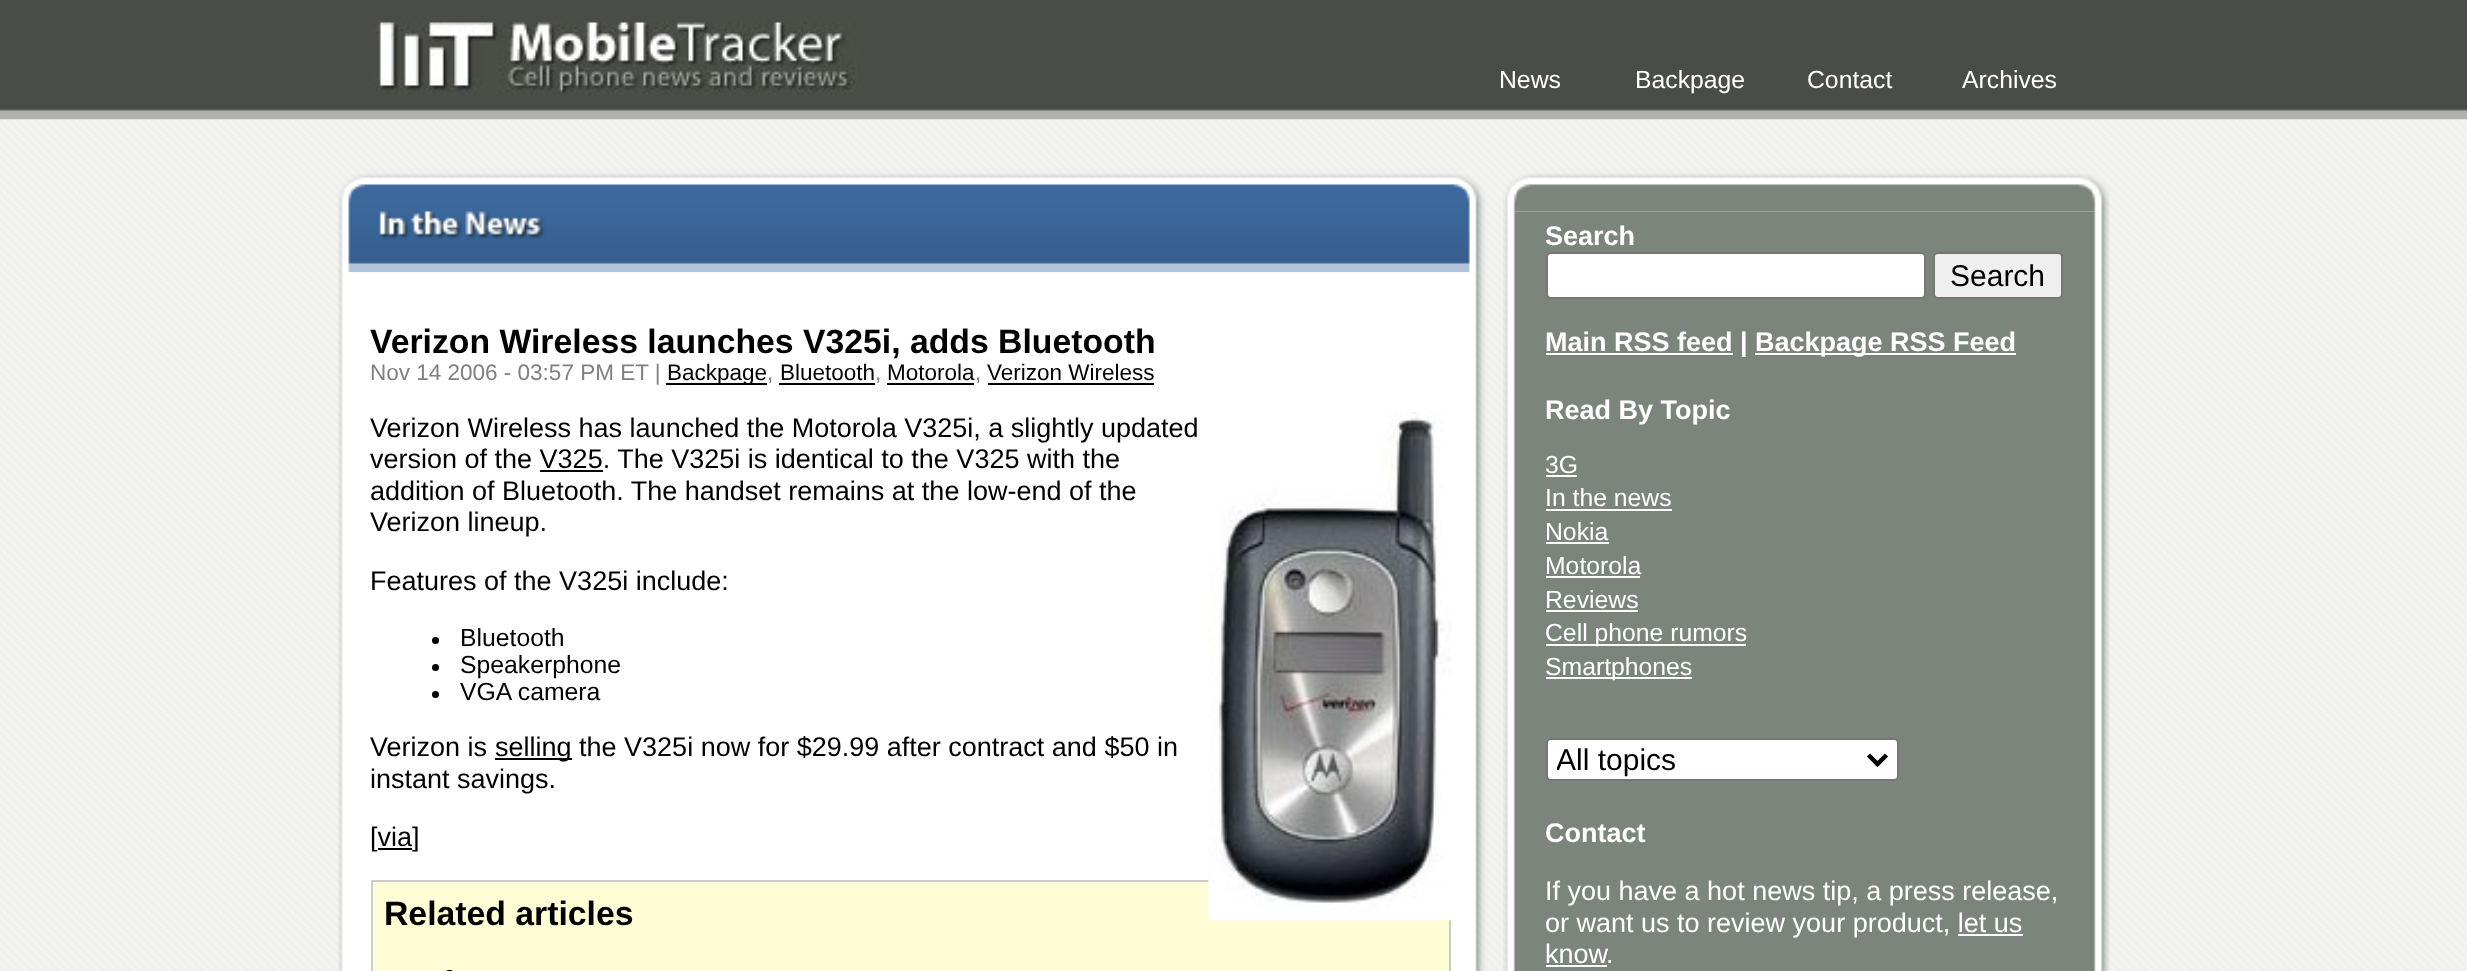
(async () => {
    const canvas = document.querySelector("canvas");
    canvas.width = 2467;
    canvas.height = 971;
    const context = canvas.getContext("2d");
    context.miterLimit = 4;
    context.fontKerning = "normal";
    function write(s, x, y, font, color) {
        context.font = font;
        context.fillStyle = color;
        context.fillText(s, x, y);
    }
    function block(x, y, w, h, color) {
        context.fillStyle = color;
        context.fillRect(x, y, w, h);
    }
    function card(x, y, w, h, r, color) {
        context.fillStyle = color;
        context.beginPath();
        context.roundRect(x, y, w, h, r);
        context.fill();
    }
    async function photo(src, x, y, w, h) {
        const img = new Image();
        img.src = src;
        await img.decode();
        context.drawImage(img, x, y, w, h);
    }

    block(0, 0, 2467, 971, "rgb(255, 255, 255)");
    await photo("media/1.png", 0, 119, 2467, 852);
    block(0, 0, 2467, 109, "rgb(74, 77, 71)");
    await photo("media/2.png", 0, 109, 2467, 11);
    await photo("media/3.png", 374, 22, 485, 73);
    write("News", 1499, 88, "24.75px Liberation Sans", "rgb(255, 255, 255)");
    write("Backpage", 1635, 88, "24.75px Liberation Sans", "rgb(255, 255, 255)");
    write("Contact", 1807, 88, "24.75px Liberation Sans", "rgb(255, 255, 255)");
    write("Archives", 1962, 88, "24.75px Liberation Sans", "rgb(255, 255, 255)");
    await photo("media/4.png", 338, 173, 1147, 100);
    await photo("media/5.png", 338, 272, 1147, 699);
    write("Verizon Wireless launches V325i, adds Bluetooth", 370, 353, "bold 33.75px Liberation Sans", "rgb(0, 0, 0)");
    write("Nov 14 2006 - 03:57 PM ET |", 370, 380, "22.5px Liberation Sans", "rgb(128, 128, 128)");
    block(666, 383, 101, 2, "rgb(0, 0, 0)");
    write("Backpage", 667, 380, "22.5px Liberation Sans", "rgb(0, 0, 0)");
    write(",", 767, 380, "22.5px Liberation Sans", "rgb(128, 128, 128)");
    write("Bluetooth", 780, 380, "22.5px Liberation Sans", "rgb(0, 0, 0)");
    block(779, 383, 96, 2, "rgb(0, 0, 0)");
    write(",", 875, 380, "22.5px Liberation Sans", "rgb(128, 128, 128)");
    write("Motorola", 887, 380, "22.5px Liberation Sans", "rgb(0, 0, 0)");
    block(887, 383, 87, 2, "rgb(0, 0, 0)");
    write(",", 975, 380, "22.5px Liberation Sans", "rgb(128, 128, 128)");
    write("Verizon Wireless", 987, 380, "22.5px Liberation Sans", "rgb(0, 0, 0)");
    block(988, 383, 166, 2, "rgb(0, 0, 0)");
    write("Verizon Wireless has launched the Motorola V325i, a slightly updated", 370, 437, "27px Liberation Sans", "rgb(0, 0, 0)");
    context.fillStyle = "rgb(255, 253, 214)";
    context.beginPath();
    context.rect(372, 881, 1078, 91);
    context.fill();
    context.strokeStyle = "rgb(204, 204, 204)";
    context.lineWidth = 2;
    context.stroke();
    await photo("media/6.png", 1208, 412, 243, 509);
    write("version of the V325. The V325i is identical to the V325 with the", 370, 468, "27px Liberation Sans", "rgb(0, 0, 0)");
    block(540, 470, 63, 2, "rgb(0, 0, 0)");
    write("addition of Bluetooth. The handset remains at the low-end of the", 370, 500, "27px Liberation Sans", "rgb(0, 0, 0)");
    write("Verizon lineup.", 370, 531, "27px Liberation Sans", "rgb(0, 0, 0)");
    write("Features of the V325i include:", 370, 590, "27px Liberation Sans", "rgb(0, 0, 0)");
    context.beginPath();
    context.arc(435.5, 640.5, 3.5, 0, Math.PI * 2);
    context.fill();
    write("Bluetooth", 460, 646, "24.75px Liberation Sans", "rgb(0, 0, 0)");
    context.beginPath();
    context.arc(435.5, 667.5, 3.5, 0, Math.PI * 2);
    context.fill();
    write("Speakerphone", 460, 673, "24.75px Liberation Sans", "rgb(0, 0, 0)");
    context.beginPath();
    context.arc(435.5, 694.5, 3.5, 0, Math.PI * 2);
    context.fill();
    write("VGA camera", 460, 700, "24.75px Liberation Sans", "rgb(0, 0, 0)");
    write("Verizon is", 370, 756, "27px Liberation Sans", "rgb(0, 0, 0)");
    block(495, 758, 77, 2, "rgb(0, 0, 0)");
    write("selling the V325i now for $29.99 after contract and $50 in", 495, 756, "27px Liberation Sans", "rgb(0, 0, 0)");
    write("instant savings.", 370, 788, "27px Liberation Sans", "rgb(0, 0, 0)");
    write("[via]", 370, 846, "27px Liberation Sans", "rgb(0, 0, 0)");
    block(378, 848, 34, 2, "rgb(0, 0, 0)");
    write("Related articles", 384, 925, "bold 33.75px Liberation Sans", "rgb(0, 0, 0)");
    card(446, 970, 7, 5, 3.5, "rgb(0, 0, 0)");
    await photo("media/7.png", 1503, 173, 607, 39);
    await photo("media/8.png", 1503, 211, 607, 760);
    write("Search", 1545, 245, "bold 27px Liberation Sans", "rgb(255, 255, 255)");
    context.beginPath();
    context.roundRect(1547, 253, 378, 45, 4);
    context.fill();
    context.strokeStyle = "rgb(118, 118, 118)";
    context.stroke();
    context.fillStyle = "rgb(239, 239, 239)";
    context.beginPath();
    context.roundRect(1934, 253, 128, 45, 4);
    context.fill();
    context.stroke();
    write("Search", 1950, 286, "30px Liberation Sans", "rgb(0, 0, 0)");
    block(1546, 353, 187, 2, "rgb(255, 255, 255)");
    write("Main RSS feed |", 1545, 351, "bold 27px Liberation Sans", "rgb(255, 255, 255)");
    block(1755, 353, 261, 2, "rgb(255, 255, 255)");
    write("Backpage RSS Feed", 1755, 351, "bold 27px Liberation Sans", "rgb(255, 255, 255)");
    write("Read By Topic", 1545, 419, "bold 27px Liberation Sans", "rgb(255, 255, 255)");
    write("3G", 1545, 473, "24.75px Liberation Sans", "rgb(255, 255, 255)");
    block(1546, 475, 31, 2, "rgb(255, 255, 255)");
    write("In the news", 1545, 506, "24.75px Liberation Sans", "rgb(255, 255, 255)");
    block(1546, 509, 126, 2, "rgb(255, 255, 255)");
    write("Nokia", 1545, 540, "24.75px Liberation Sans", "rgb(255, 255, 255)");
    block(1546, 542, 63, 2, "rgb(255, 255, 255)");
    write("Motorola", 1545, 574, "24.75px Liberation Sans", "rgb(255, 255, 255)");
    block(1546, 576, 94, 2, "rgb(255, 255, 255)");
    write("Reviews", 1545, 608, "24.75px Liberation Sans", "rgb(255, 255, 255)");
    block(1546, 610, 92, 2, "rgb(255, 255, 255)");
    block(1546, 644, 200, 2, "rgb(255, 255, 255)");
    write("Cell phone rumors", 1545, 641, "24.75px Liberation Sans", "rgb(255, 255, 255)");
    block(1546, 677, 146, 2, "rgb(255, 255, 255)");
    write("Smartphones", 1545, 675, "24.75px Liberation Sans", "rgb(255, 255, 255)");
    context.beginPath();
    context.roundRect(1547, 739, 351, 41, 4);
    context.fill();
    context.stroke();
    context.beginPath();
    context.moveTo(1868.5, 755);
    context.lineTo(1877.5, 764);
    context.lineTo(1886.5, 755);
    context.strokeStyle = "rgb(0, 0, 0)";
    context.lineWidth = 4.5;
    context.stroke();
    context.save();
    context.beginPath();
    context.rect(1557, 740, 304, 39);
    context.clip();
    write("All topics", 1556, 770, "30px Liberation Sans", "rgb(0, 0, 0)");
    context.restore();
    write("Contact", 1545, 842, "bold 27px Liberation Sans", "rgb(255, 255, 255)");
    write("If you have a hot news tip, a press release,", 1545, 900, "27px Liberation Sans", "rgb(255, 255, 255)");
    write("or want us to review your product, let us", 1545, 932, "27px Liberation Sans", "rgb(255, 255, 255)");
    write("know", 1545, 963, "27px Liberation Sans", "rgb(255, 255, 255)");
    block(1958, 934, 65, 2, "rgb(255, 255, 255)");
    block(1546, 965, 61, 2, "rgb(255, 255, 255)");
    write(".", 1606, 963, "27px Liberation Sans", "rgb(255, 255, 255)");
})();
